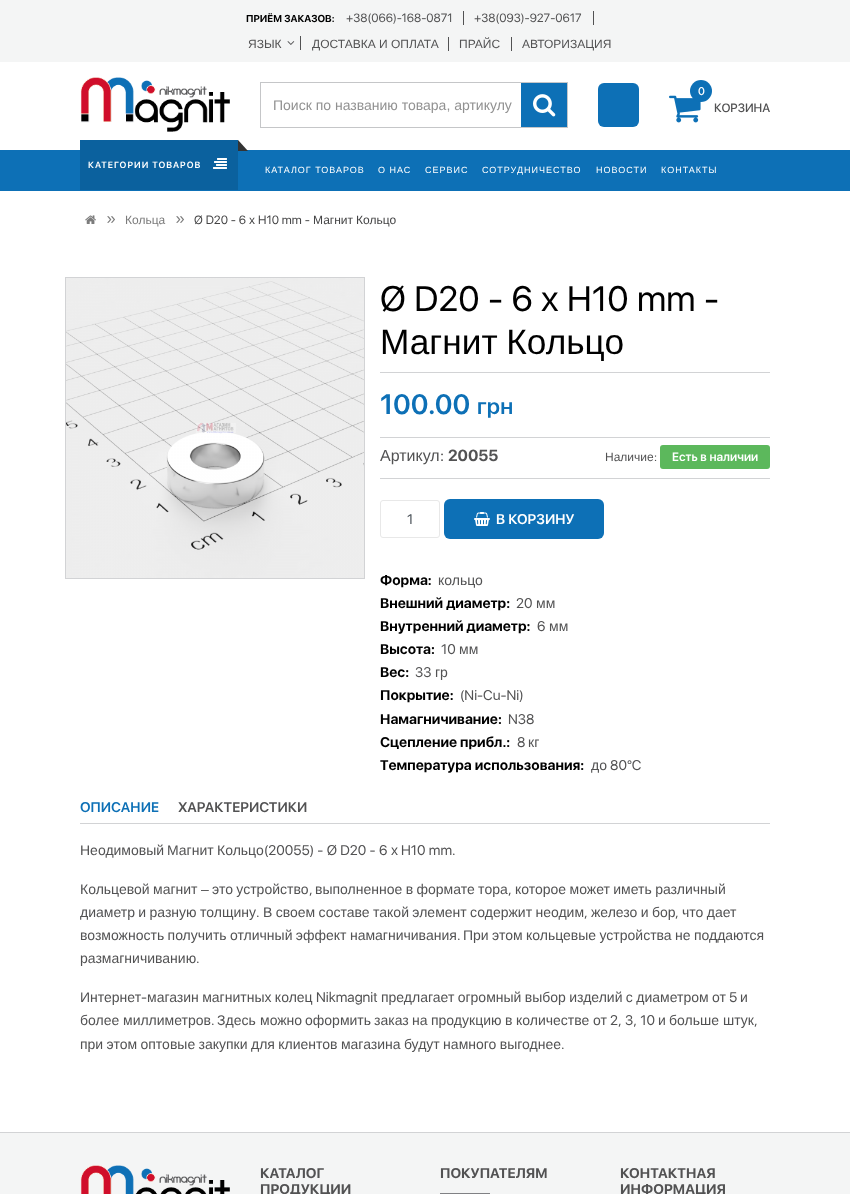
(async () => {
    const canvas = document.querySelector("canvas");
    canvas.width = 850;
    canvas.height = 1194;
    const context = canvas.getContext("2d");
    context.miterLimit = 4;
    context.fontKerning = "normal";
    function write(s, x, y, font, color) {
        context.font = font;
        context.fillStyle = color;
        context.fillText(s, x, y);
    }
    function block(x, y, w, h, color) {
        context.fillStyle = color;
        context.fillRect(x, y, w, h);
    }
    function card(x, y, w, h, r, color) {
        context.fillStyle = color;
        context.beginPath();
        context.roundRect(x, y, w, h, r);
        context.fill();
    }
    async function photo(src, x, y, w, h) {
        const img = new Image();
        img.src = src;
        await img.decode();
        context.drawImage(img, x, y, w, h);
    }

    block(0, 0, 850, 1194, "rgb(255, 255, 255)");
    block(0, 0, 850, 62, "rgb(244, 245, 245)");
    write("ПРИЁМ ЗАКАЗОВ:", 246, 22, "bold 10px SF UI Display", "rgb(0, 0, 0)");
    write("+38(066)-168-0871", 346, 22, "12px SF UI Display", "rgb(82, 82, 83)");
    write("+38(093)-927-0617", 474, 22, "12px SF UI Display", "rgb(82, 82, 83)");
    block(463, 11, 1, 14, "rgb(82, 82, 83)");
    block(593, 11, 1, 14, "rgb(82, 82, 83)");
    block(300, 36, 1, 14, "rgb(82, 82, 83)");
    write("ЯЗЫК", 248, 48, "12px Liberation Sans", "rgb(82, 82, 83)");
    await photo("media/1.png", 287, 41, 8, 4);
    write("ДОСТАВКА И ОПЛАТА", 312, 48, "12px Liberation Sans", "rgb(82, 82, 83)");
    write("ПРАЙС", 459, 48, "12px Liberation Sans", "rgb(82, 82, 83)");
    block(448, 37, 1, 14, "rgb(82, 82, 83)");
    write("АВТОРИЗАЦИЯ", 522, 48, "12px Liberation Sans", "rgb(82, 82, 83)");
    block(511, 37, 1, 14, "rgb(82, 82, 83)");
    await photo("media/2.png", 80, 77, 150, 55);
    context.strokeStyle = "rgb(197, 198, 200)";
    context.strokeRect(260.5, 82.5, 307, 45);
    write("Поиск по названию товара, артикулу", 273, 110, "14px Liberation Sans", "rgb(145, 145, 145)");
    block(521, 83, 46, 44, "rgb(13, 112, 182)");
    await photo("media/3.png", 533, 94, 23, 23);
    card(598, 83, 41, 44, 6, "rgb(13, 112, 182)");
    await photo("media/4.png", 669, 95, 32, 28);
    context.beginPath();
    context.arc(701, 91, 11, 0, Math.PI * 2);
    context.fill();
    write("0", 698, 95, "500 11px SF UI Display", "rgb(255, 255, 255)");
    write("КОРЗИНА", 714, 112, "500 12px SF UI Display", "rgb(82, 82, 83)");
    block(0, 150, 850, 41, "rgb(13, 112, 182)");
    block(80, 140, 158, 50, "rgb(11, 97, 158)");
    context.fillStyle = "rgb(51, 51, 51)";
    context.beginPath();
    context.moveTo(238, 151);
    context.lineTo(238, 140);
    context.lineTo(248, 151);
    context.closePath();
    context.fill();
    context.letterSpacing = "1px";
    write("КАТЕГОРИИ ТОВАРОВ", 88, 168, "600 9px SF UI Display", "rgb(255, 255, 255)");
    await photo("media/5.png", 213, 158, 14, 11);
    write("КАТАЛОГ ТОВАРОВ", 265, 173, "9px Liberation Sans", "rgb(255, 255, 255)");
    write("О НАС", 378, 173, "9px Liberation Sans", "rgb(255, 255, 255)");
    write("СЕРВИС", 425, 173, "9px Liberation Sans", "rgb(255, 255, 255)");
    write("СОТРУДНИЧЕСТВО", 482, 173, "9px Liberation Sans", "rgb(255, 255, 255)");
    write("НОВОСТИ", 596, 173, "9px Liberation Sans", "rgb(255, 255, 255)");
    write("КОНТАКТЫ", 661, 173, "9px Liberation Sans", "rgb(255, 255, 255)");
    await photo("media/6.png", 85, 215, 11, 9);
    context.letterSpacing = "0px";
    write("»", 106, 224, "16px SF UI Display", "rgb(124, 124, 124)");
    write("Кольца", 125, 224, "12px Liberation Sans", "rgb(124, 124, 124)");
    write("»", 175, 224, "16px SF UI Display", "rgb(124, 124, 124)");
    write("Ø D20 - 6", 194, 224, "12px SF UI Display", "rgb(69, 69, 70)");
    write("х", 249, 224, "12px Liberation Sans", "rgb(69, 69, 70)");
    write("H10 mm -", 258, 224, "12px SF UI Display", "rgb(69, 69, 70)");
    write("Магнит", 313, 224, "12px Liberation Sans", "rgb(69, 69, 70)");
    write("Кольцо", 356, 224, "12px Liberation Sans", "rgb(69, 69, 70)");
    context.strokeStyle = "rgb(210, 211, 213)";
    context.strokeRect(65.5, 277.5, 299, 301);
    await photo("media/7.png", 66, 278, 298, 300);
    block(380, 372, 390, 1, "rgb(210, 211, 213)");
    write("Ø D20 - 6", 380, 311, "35.25px SF UI Display", "rgb(0, 0, 0)");
    write("х", 541, 311, "35.25px Liberation Sans", "rgb(0, 0, 0)");
    write("H10 mm -", 567, 311, "35.25px SF UI Display", "rgb(0, 0, 0)");
    context.wordSpacing = "-1px";
    write("Магнит Кольцо", 380, 354, "35.25px Liberation Sans", "rgb(0, 0, 0)");
    block(380, 437, 390, 1, "rgb(210, 211, 213)");
    context.wordSpacing = "0px";
    write("100.00", 380, 414, "600 28px SF UI Display", "rgb(13, 112, 182)");
    write("грн", 477, 414, "600 22px SF UI Display", "rgb(13, 112, 182)");
    block(380, 478, 390, 1, "rgb(210, 211, 213)");
    write("Артикул", 380, 461, "16px Liberation Sans", "rgb(82, 82, 83)");
    write(":", 440, 461, "16px SF UI Display", "rgb(82, 82, 83)");
    write("20055", 448, 461, "bold 16px SF UI Display", "rgb(82, 82, 83)");
    write("Наличие", 605, 461, "12px Liberation Sans", "rgb(82, 82, 83)");
    write(":", 654, 461, "12px SF UI Display", "rgb(82, 82, 83)");
    card(660, 445, 110, 24, 3, "rgb(92, 184, 92)");
    write("Есть в наличии", 672, 461, "600 12px SF UI Display", "rgb(255, 255, 255)");
    context.beginPath();
    context.roundRect(380.5, 500.5, 59, 37, 2.5);
    context.strokeStyle = "rgb(232, 232, 232)";
    context.stroke();
    write("1", 407, 524, "14px SF UI Display", "rgb(73, 80, 87)");
    card(444, 499, 160, 40, 6, "rgb(13, 112, 182)");
    await photo("media/8.png", 474, 512, 16, 14);
    write("В КОРЗИНУ", 496, 524, "600 14px SF UI Display", "rgb(255, 255, 255)");
    write("Форма:", 380, 585, "bold 14px SF UI Display", "rgb(0, 0, 0)");
    write("кольцо", 438, 585, "14px Liberation Sans", "rgb(82, 82, 83)");
    write("Внешний диаметр:", 380, 608, "bold 14px SF UI Display", "rgb(0, 0, 0)");
    write("20", 516, 608, "14px SF UI Display", "rgb(82, 82, 83)");
    write("мм", 536, 608, "14px Liberation Sans", "rgb(82, 82, 83)");
    write("Внутренний диаметр:", 380, 631, "bold 14px SF UI Display", "rgb(0, 0, 0)");
    write("6", 537, 631, "14px SF UI Display", "rgb(82, 82, 83)");
    write("мм", 549, 631, "14px Liberation Sans", "rgb(82, 82, 83)");
    write("Высота:", 380, 654, "bold 14px SF UI Display", "rgb(0, 0, 0)");
    write("10", 441, 654, "14px SF UI Display", "rgb(82, 82, 83)");
    write("мм", 459, 654, "14px Liberation Sans", "rgb(82, 82, 83)");
    write("Вес:", 380, 677, "bold 14px SF UI Display", "rgb(0, 0, 0)");
    write("33", 415, 677, "14px SF UI Display", "rgb(82, 82, 83)");
    write("гр", 435, 677, "14px Liberation Sans", "rgb(82, 82, 83)");
    write("Покрытие:", 380, 700, "bold 14px SF UI Display", "rgb(0, 0, 0)");
    write("(Ni-Cu-Ni)", 460, 700, "14px SF UI Display", "rgb(82, 82, 83)");
    write("Намагничивание:", 380, 724, "bold 14px SF UI Display", "rgb(0, 0, 0)");
    write("N38", 508, 724, "14px SF UI Display", "rgb(82, 82, 83)");
    write("Сцепление прибл.:", 380, 747, "bold 14px SF UI Display", "rgb(0, 0, 0)");
    write("8", 517, 747, "14px SF UI Display", "rgb(82, 82, 83)");
    write("кг", 528, 747, "14px Liberation Sans", "rgb(82, 82, 83)");
    write("Tемпература использования:", 380, 770, "bold 14px SF UI Display", "rgb(0, 0, 0)");
    write("до", 591, 770, "14px Liberation Sans", "rgb(82, 82, 83)");
    write("80°C", 610, 770, "14px SF UI Display", "rgb(82, 82, 83)");
    block(80, 823, 690, 1, "rgb(210, 211, 213)");
    write("ОПИСАНИЕ", 80, 812, "600 14px SF UI Display", "rgb(13, 112, 182)");
    write("ХАРАКТЕРИСТИКИ", 178, 812, "600 14px SF UI Display", "rgb(82, 82, 83)");
    write("Неодимовый", 80, 855, "14px Liberation Sans", "rgb(82, 82, 83)");
    write("Магнит", 167, 855, "14px Liberation Sans", "rgb(82, 82, 83)");
    write("Кольцо", 217, 855, "14px Liberation Sans", "rgb(82, 82, 83)");
    write("(20055) - Ø D20 - 6", 264, 855, "14px SF UI Display", "rgb(82, 82, 83)");
    write("х", 391, 855, "14px Liberation Sans", "rgb(82, 82, 83)");
    write("H10 mm.", 401, 855, "14px SF UI Display", "rgb(82, 82, 83)");
    context.wordSpacing = "-0.5px";
    write("Кольцевой магнит – это устройство", 80, 894, "14px Liberation Sans", "rgb(82, 82, 83)");
    context.wordSpacing = "0px";
    write(",", 309, 894, "14px SF UI Display", "rgb(82, 82, 83)");
    context.wordSpacing = "-0.5px";
    write("выполненное в формате тора", 315, 894, "14px Liberation Sans", "rgb(82, 82, 83)");
    context.wordSpacing = "0px";
    write(",", 508, 894, "14px SF UI Display", "rgb(82, 82, 83)");
    context.wordSpacing = "-0.5px";
    write("которое может иметь различный", 515, 894, "14px Liberation Sans", "rgb(82, 82, 83)");
    write("диаметр и разную толщину", 80, 917, "14px Liberation Sans", "rgb(82, 82, 83)");
    context.wordSpacing = "0px";
    write(".", 256, 917, "14px SF UI Display", "rgb(82, 82, 83)");
    context.wordSpacing = "-0.5px";
    write("В своем составе такой элемент содержит неодим", 263, 917, "14px Liberation Sans", "rgb(82, 82, 83)");
    context.wordSpacing = "0px";
    write(",", 584, 917, "14px SF UI Display", "rgb(82, 82, 83)");
    context.wordSpacing = "-0.5px";
    write("железо и бор", 591, 917, "14px Liberation Sans", "rgb(82, 82, 83)");
    context.wordSpacing = "0px";
    write(",", 675, 917, "14px SF UI Display", "rgb(82, 82, 83)");
    context.wordSpacing = "-0.5px";
    write("что дает", 682, 917, "14px Liberation Sans", "rgb(82, 82, 83)");
    write("возможность получить отличный эффект намагничивания", 80, 940, "14px Liberation Sans", "rgb(82, 82, 83)");
    context.wordSpacing = "0px";
    write(".", 457, 940, "14px SF UI Display", "rgb(82, 82, 83)");
    context.wordSpacing = "-0.5px";
    write("При этом кольцевые устройства не поддаются", 463, 940, "14px Liberation Sans", "rgb(82, 82, 83)");
    context.wordSpacing = "0px";
    write("размагничиванию", 80, 963, "14px Liberation Sans", "rgb(82, 82, 83)");
    write(".", 196, 963, "14px SF UI Display", "rgb(82, 82, 83)");
    write("Интернет", 80, 1002, "14px Liberation Sans", "rgb(82, 82, 83)");
    write("-", 141, 1002, "14px SF UI Display", "rgb(82, 82, 83)");
    context.wordSpacing = "-0.5px";
    write("магазин магнитных колец", 147, 1002, "14px Liberation Sans", "rgb(82, 82, 83)");
    context.wordSpacing = "0px";
    write("Nikmagnit", 316, 1002, "14px SF UI Display", "rgb(82, 82, 83)");
    context.wordSpacing = "-0.5px";
    write("предлагает огромный выбор изделий с диаметром от", 381, 1002, "14px Liberation Sans", "rgb(82, 82, 83)");
    context.wordSpacing = "0px";
    write("5", 729, 1002, "14px SF UI Display", "rgb(82, 82, 83)");
    write("и", 740, 1002, "14px Liberation Sans", "rgb(82, 82, 83)");
    write("более", 80, 1025, "14px Liberation Sans", "rgb(82, 82, 83)");
    write("миллиметров", 123, 1025, "14px Liberation Sans", "rgb(82, 82, 83)");
    write(".", 211, 1025, "14px SF UI Display", "rgb(82, 82, 83)");
    write("Здесь", 217, 1025, "14px Liberation Sans", "rgb(82, 82, 83)");
    write("можно", 260, 1025, "14px Liberation Sans", "rgb(82, 82, 83)");
    write("оформить", 305, 1025, "14px Liberation Sans", "rgb(82, 82, 83)");
    write("заказ", 374, 1025, "14px Liberation Sans", "rgb(82, 82, 83)");
    write("на", 412, 1025, "14px Liberation Sans", "rgb(82, 82, 83)");
    write("продукцию", 431, 1025, "14px Liberation Sans", "rgb(82, 82, 83)");
    write("в", 505, 1025, "14px Liberation Sans", "rgb(82, 82, 83)");
    write("количестве", 516, 1025, "14px Liberation Sans", "rgb(82, 82, 83)");
    write("от", 593, 1025, "14px Liberation Sans", "rgb(82, 82, 83)");
    write("2, 3, 10", 610, 1025, "14px SF UI Display", "rgb(82, 82, 83)");
    write("и", 658, 1025, "14px Liberation Sans", "rgb(82, 82, 83)");
    write("больше", 669, 1025, "14px Liberation Sans", "rgb(82, 82, 83)");
    write("штук", 723, 1025, "14px Liberation Sans", "rgb(82, 82, 83)");
    write(",", 754, 1025, "14px SF UI Display", "rgb(82, 82, 83)");
    context.wordSpacing = "-0.5px";
    write("при этом оптовые закупки для клиентов магазина будут намного выгоднее", 80, 1049, "14px Liberation Sans", "rgb(82, 82, 83)");
    context.wordSpacing = "0px";
    write(".", 561, 1049, "14px SF UI Display", "rgb(82, 82, 83)");
    block(0, 1133, 850, 61, "rgb(244, 245, 245)");
    block(0, 1132, 850, 1, "rgb(210, 211, 213)");
    await photo("media/9.png", 80, 1165, 150, 29);
    write("КАТАЛОГ", 260, 1178, "bold 14px SF UI Display", "rgb(82, 82, 83)");
    write("ПРОДУКЦИИ", 260, 1194, "bold 14px SF UI Display", "rgb(82, 82, 83)");
    write("ПОКУПАТЕЛЯМ", 440, 1178, "bold 14px SF UI Display", "rgb(82, 82, 83)");
    block(440, 1193, 50, 1, "rgb(128, 129, 132)");
    write("КОНТАКТНАЯ", 620, 1178, "bold 14px SF UI Display", "rgb(82, 82, 83)");
    write("ИНФОРМАЦИЯ", 620, 1194, "bold 14px SF UI Display", "rgb(82, 82, 83)");
})();
